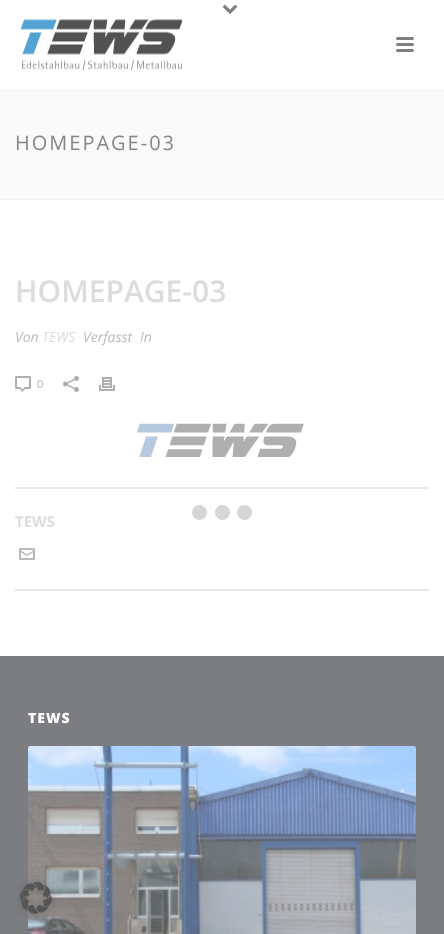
(async () => {
    const canvas = document.querySelector("canvas");
    canvas.width = 444;
    canvas.height = 934;
    const context = canvas.getContext("2d");
    context.miterLimit = 4;
    context.fontKerning = "normal";
    function write(s, x, y, font, color) {
        context.font = font;
        context.fillStyle = color;
        context.fillText(s, x, y);
    }
    function block(x, y, w, h, color) {
        context.fillStyle = color;
        context.fillRect(x, y, w, h);
    }
    function card(x, y, w, h, r, color) {
        context.fillStyle = color;
        context.beginPath();
        context.roundRect(x, y, w, h, r);
        context.fill();
    }
    async function photo(src, x, y, w, h) {
        const img = new Image();
        img.src = src;
        await img.decode();
        context.drawImage(img, x, y, w, h);
    }

    block(0, 0, 444, 934, "rgb(255, 255, 255)");
    block(0, 91, 444, 108, "rgb(250, 250, 250)");
    block(0, 199, 444, 1, "rgb(243, 243, 243)");
    block(0, 90, 444, 1, "rgb(243, 243, 243)");
    await photo("media/1.png", 222, 4, 16, 10);
    await photo("media/2.png", 20, 19, 162, 52);
    card(396, 37, 18, 3, 1.5, "rgb(128, 128, 128)");
    card(396, 43, 18, 3, 1.5, "rgb(128, 128, 128)");
    card(396, 49, 18, 3, 1.5, "rgb(128, 128, 128)");
    context.letterSpacing = "2px";
    write("HOMEPAGE-03", 15, 150, "20px Open Sans", "rgb(134, 134, 134)");
    context.letterSpacing = "0px";
    write("HOMEPAGE-03", 15, 302, "600 30px Open Sans", "rgb(220, 220, 220)");
    write("Von", 15, 342, "italic 14px Open Sans", "rgb(186, 186, 186)");
    write("TEWS", 42, 342, "italic 14px Open Sans", "rgb(220, 220, 220)");
    write("Verfasst", 83, 342, "italic 14px Open Sans", "rgb(186, 186, 186)");
    write("In", 140, 342, "italic 14px Open Sans", "rgb(186, 186, 186)");
    await photo("media/3.png", 15, 376, 16, 16);
    write("0", 37, 388, "11px Open Sans", "rgb(175, 175, 175)");
    await photo("media/4.png", 63, 376, 16, 16);
    await photo("media/5.png", 99, 377, 16, 14);
    block(15, 487, 414, 2, "rgb(232, 232, 232)");
    block(15, 589, 414, 2, "rgb(232, 232, 232)");
    write("TEWS", 15, 527, "bold 15px Open Sans", "rgb(220, 220, 220)");
    await photo("media/6.png", 19, 548, 16, 12);
    block(0, 656, 444, 278, "rgb(123, 125, 129)");
    context.letterSpacing = "1px";
    write("TEWS", 28, 723, "800 14px Open Sans", "rgb(255, 255, 255)");
    await photo("media/7.png", 28, 746, 388, 188);
    await photo("media/8.png", 137, 423, 167, 34);
    context.fillStyle = "rgb(214, 214, 214)";
    context.beginPath();
    context.arc(199.5, 512.5, 7.5, 0, Math.PI * 2);
    context.fill();
    context.beginPath();
    context.arc(222.5, 512.5, 7.5, 0, Math.PI * 2);
    context.fill();
    context.beginPath();
    context.arc(244.5, 512.5, 7.5, 0, Math.PI * 2);
    context.fill();
    await photo("media/9.png", 17, 879, 39, 38);
})();
